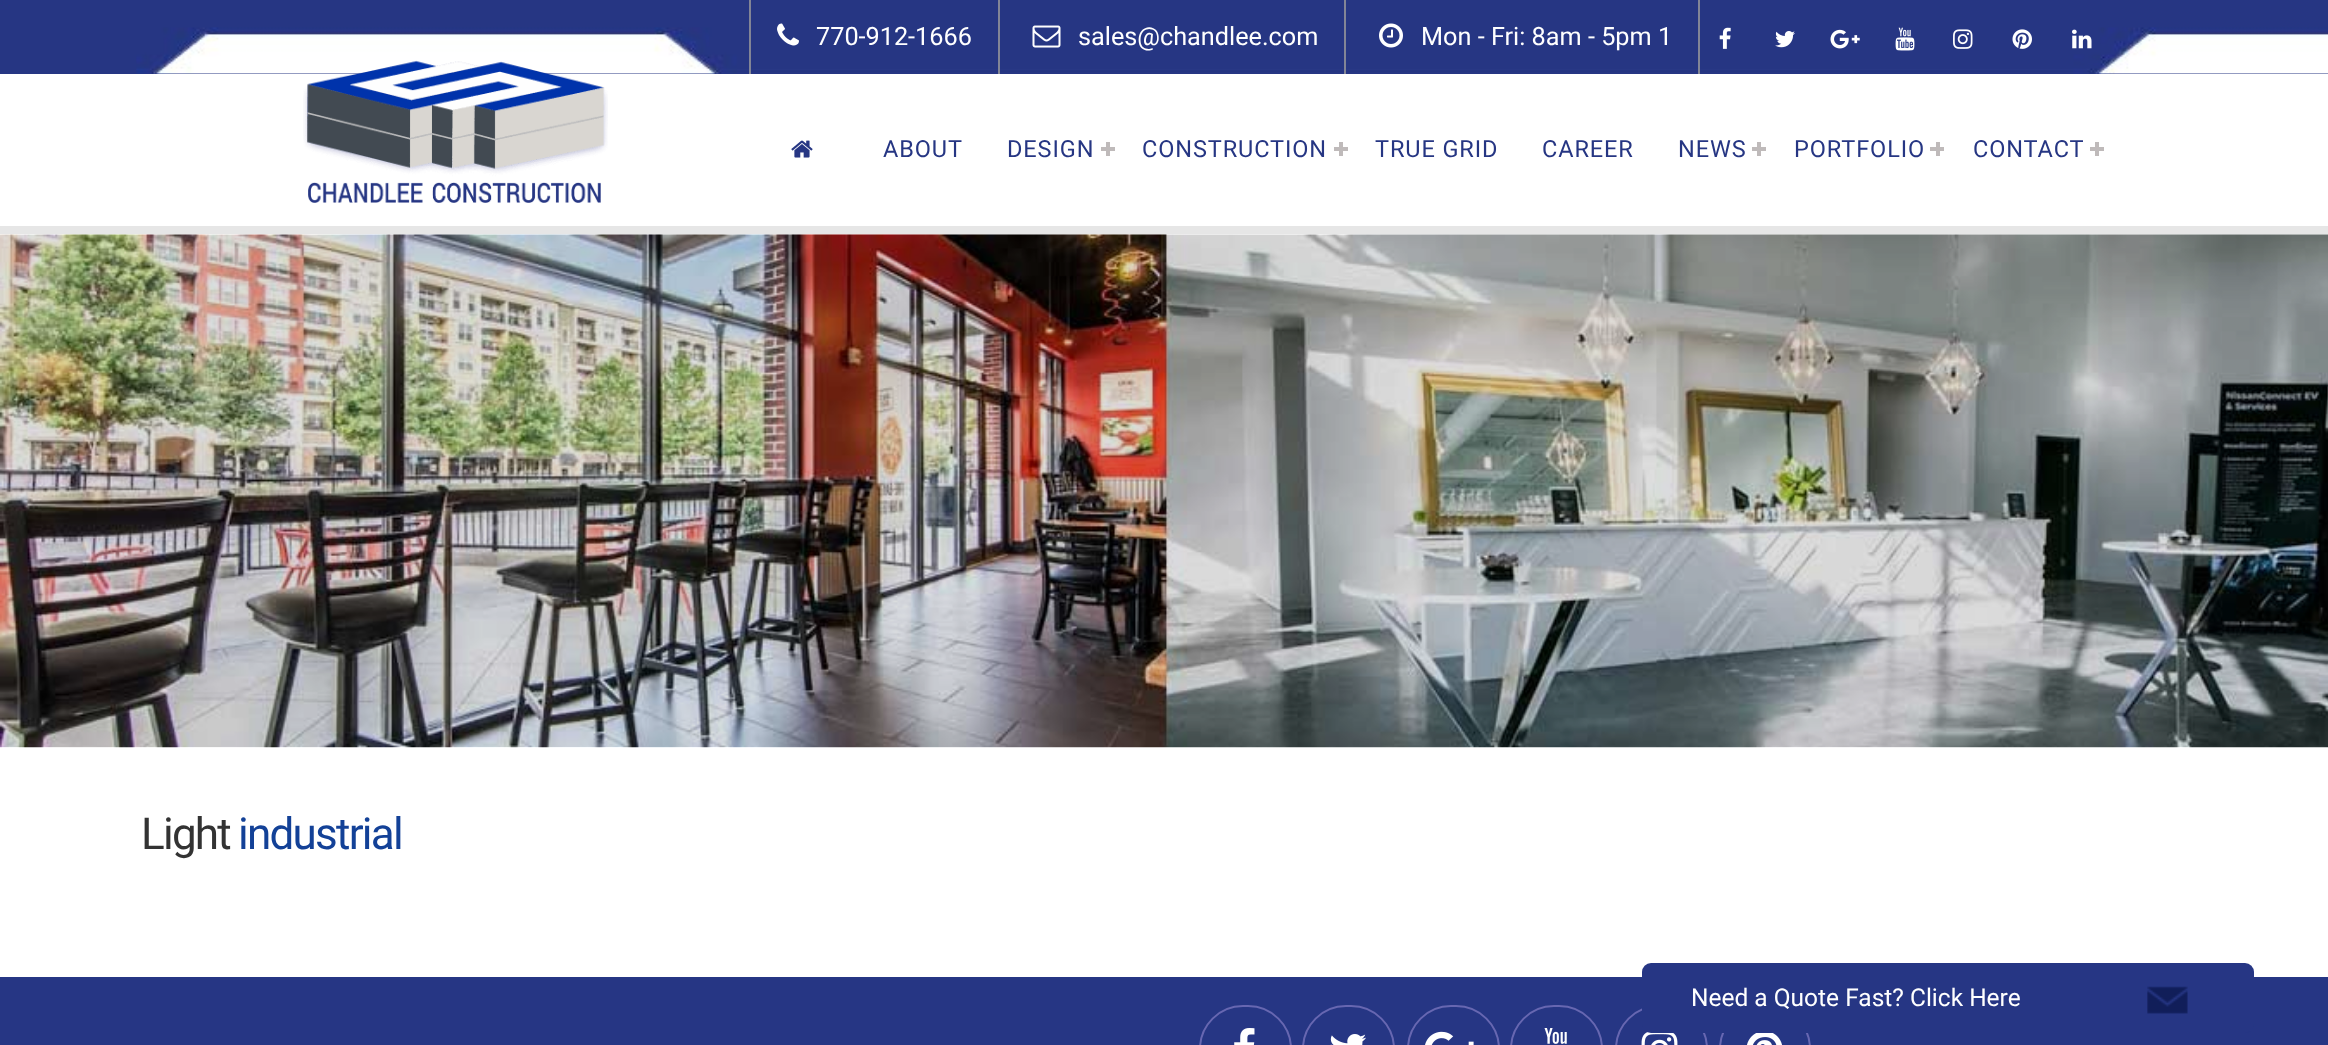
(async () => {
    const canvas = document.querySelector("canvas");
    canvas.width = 2328;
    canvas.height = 1045;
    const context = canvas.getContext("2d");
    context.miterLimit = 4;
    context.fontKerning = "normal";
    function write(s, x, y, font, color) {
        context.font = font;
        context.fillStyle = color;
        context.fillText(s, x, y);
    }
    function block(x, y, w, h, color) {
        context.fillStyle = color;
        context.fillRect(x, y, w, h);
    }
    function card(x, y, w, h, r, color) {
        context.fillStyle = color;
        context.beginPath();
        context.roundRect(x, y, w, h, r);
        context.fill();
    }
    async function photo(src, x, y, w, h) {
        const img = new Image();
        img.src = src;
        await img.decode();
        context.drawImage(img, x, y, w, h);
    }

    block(0, 0, 2328, 1045, "rgb(255, 255, 255)");
    block(0, 0, 2328, 74, "rgb(38, 54, 131)");
    await photo("media/1.png", 136, 27, 2192, 47);
    block(998, 0, 2, 74, "rgb(130, 133, 150)");
    block(749, 0, 2, 74, "rgb(130, 133, 150)");
    await photo("media/2.png", 777, 23, 22, 23);
    write("770-912-1666", 816, 45, "25.25px Roboto", "rgb(255, 255, 255)");
    block(1344, 0, 2, 74, "rgb(130, 133, 150)");
    await photo("media/3.png", 1032, 25, 29, 23);
    write("sales@chandlee.com", 1078, 45, "25.25px Roboto", "rgb(255, 255, 255)");
    block(1698, 0, 2, 74, "rgb(130, 133, 150)");
    await photo("media/4.png", 1379, 23, 24, 25);
    write("Mon - Fri: 8am - 5pm 1", 1421, 45, "25.25px Roboto", "rgb(255, 255, 255)");
    await photo("media/5.png", 1719, 27, 12, 22);
    await photo("media/6.png", 1775, 31, 20, 17);
    await photo("media/7.png", 1830, 29, 30, 20);
    await photo("media/8.png", 1895, 27, 20, 24);
    await photo("media/9.png", 1953, 29, 20, 20);
    await photo("media/10.png", 2012, 29, 20, 20);
    await photo("media/11.png", 2072, 29, 20, 20);
    await photo("media/12.png", 303, 60, 305, 143);
    await photo("media/13.png", 791, 140, 22, 18);
    context.letterSpacing = "0.9px";
    write("ABOUT", 883, 157, "23.5px Roboto", "rgb(38, 54, 131)");
    write("DESIGN", 1007, 157, "23.5px Roboto", "rgb(38, 54, 131)");
    block(1106, 142, 4, 14, "rgb(191, 186, 186)");
    block(1101, 147, 14, 4, "rgb(191, 186, 186)");
    write("CONSTRUCTION", 1142, 157, "23.5px Roboto", "rgb(38, 54, 131)");
    block(1339, 142, 4, 14, "rgb(191, 186, 186)");
    block(1334, 147, 14, 4, "rgb(191, 186, 186)");
    write("TRUE GRID", 1375, 157, "23.5px Roboto", "rgb(38, 54, 131)");
    write("CAREER", 1542, 157, "23.5px Roboto", "rgb(38, 54, 131)");
    write("NEWS", 1678, 157, "23.5px Roboto", "rgb(38, 54, 131)");
    block(1757, 142, 4, 14, "rgb(191, 186, 186)");
    block(1752, 147, 14, 4, "rgb(191, 186, 186)");
    write("PORTFOLIO", 1794, 157, "23.5px Roboto", "rgb(38, 54, 131)");
    block(1936, 142, 4, 14, "rgb(191, 186, 186)");
    block(1930, 147, 14, 4, "rgb(191, 186, 186)");
    write("CONTACT", 1973, 157, "23.5px Roboto", "rgb(38, 54, 131)");
    block(2095, 142, 4, 14, "rgb(191, 186, 186)");
    block(2090, 147, 14, 4, "rgb(191, 186, 186)");
    block(0, 226, 2328, 9, "rgb(230, 230, 230)");
    await photo("media/14.png", 0, 234, 2328, 514);
    context.letterSpacing = "-1.75px";
    write("Light", 141, 849, "44px Roboto", "rgb(51, 51, 51)");
    write("industrial", 238, 849, "44px Roboto", "rgb(19, 65, 151)");
    block(0, 977, 2328, 68, "rgb(38, 54, 132)");
    context.beginPath();
    context.roundRect(1200, 1006, 91, 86, 44.5);
    context.strokeStyle = "rgb(103, 103, 177)";
    context.lineWidth = 2;
    context.stroke();
    await photo("media/15.png", 1234, 1028, 21, 17);
    context.beginPath();
    context.roundRect(1303, 1006, 91, 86, 44.5);
    context.stroke();
    await photo("media/16.png", 1330, 1034, 36, 11);
    context.beginPath();
    context.roundRect(1408, 1006, 91, 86, 44.5);
    context.stroke();
    await photo("media/17.png", 1425, 1031, 49, 14);
    context.beginPath();
    context.roundRect(1511, 1006, 91, 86, 44.5);
    context.stroke();
    await photo("media/18.png", 1544, 1028, 23, 16);
    context.beginPath();
    context.roundRect(1616, 1006, 91, 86, 44.5);
    context.stroke();
    await photo("media/19.png", 1641, 1032, 37, 13);
    context.beginPath();
    context.roundRect(1720, 1006, 90, 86, 44.5);
    context.stroke();
    await photo("media/20.png", 1747, 1033, 35, 12);
    card(1642, 963, 612, 70, 9, "rgb(38, 54, 132)");
    await photo("media/21.png", 2147, 986, 41, 28);
    context.letterSpacing = "0px";
    write("Need a Quote Fast? Click Here", 1691, 1006, "24.5px Roboto", "rgb(255, 255, 255)");
})();
